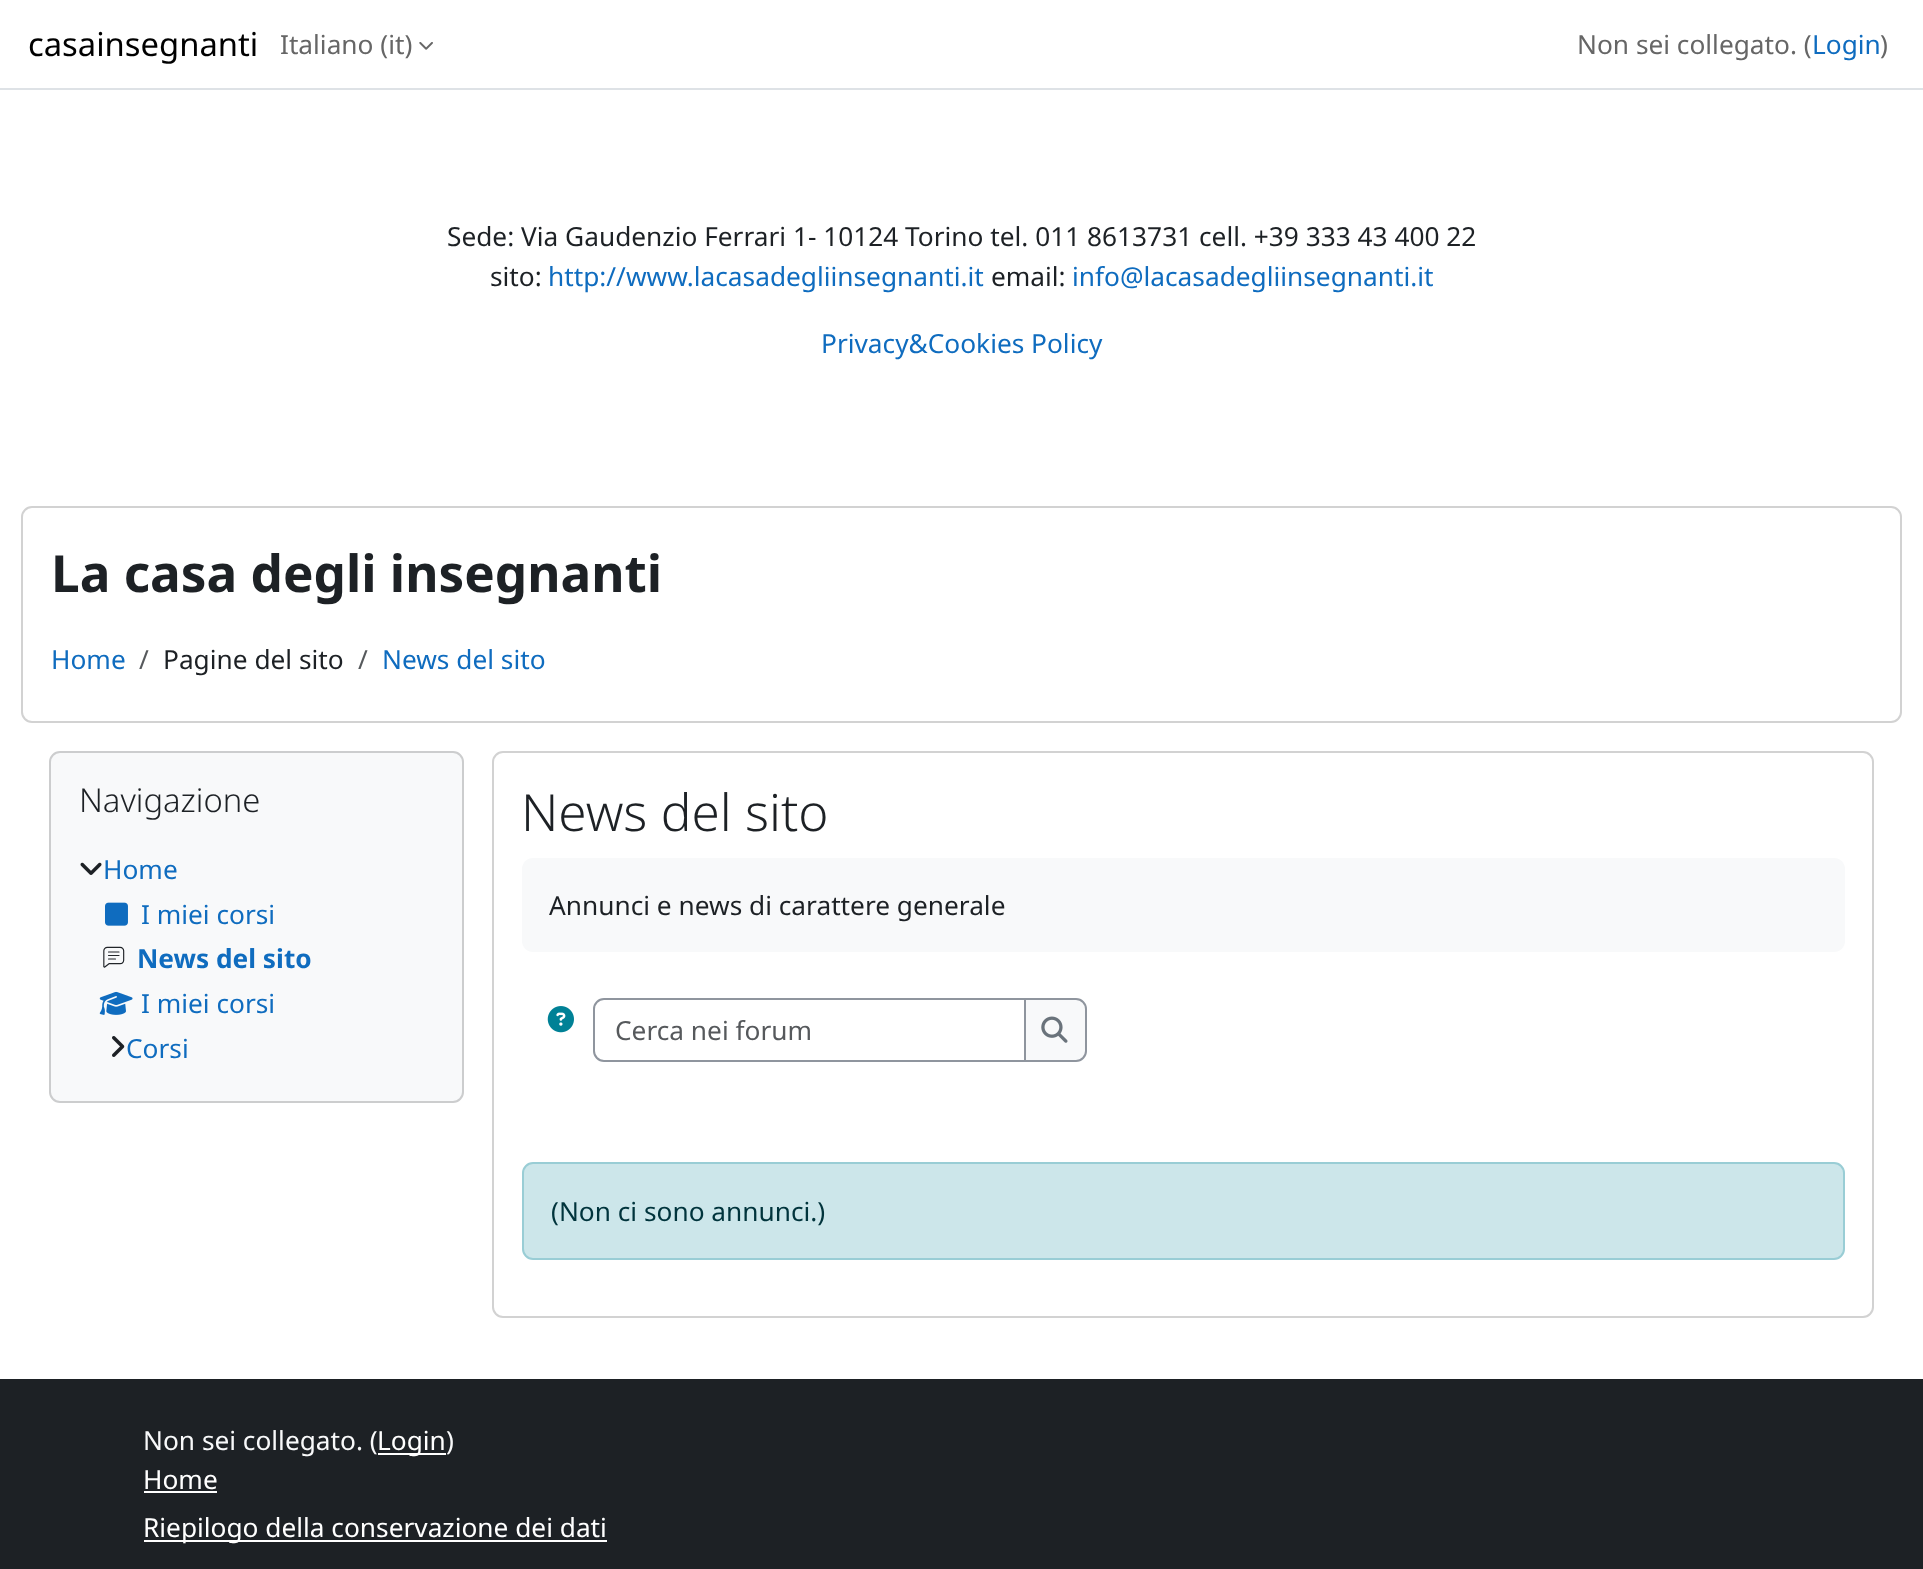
(async () => {
    const canvas = document.querySelector("canvas");
    canvas.width = 1923;
    canvas.height = 1569;
    const context = canvas.getContext("2d");
    context.miterLimit = 4;
    context.fontKerning = "normal";
    function write(s, x, y, font, color) {
        context.font = font;
        context.fillStyle = color;
        context.fillText(s, x, y);
    }
    function block(x, y, w, h, color) {
        context.fillStyle = color;
        context.fillRect(x, y, w, h);
    }
    function card(x, y, w, h, r, color) {
        context.fillStyle = color;
        context.beginPath();
        context.roundRect(x, y, w, h, r);
        context.fill();
    }
    async function photo(src, x, y, w, h) {
        const img = new Image();
        img.src = src;
        await img.decode();
        context.drawImage(img, x, y, w, h);
    }

    block(0, 0, 1923, 1569, "rgb(255, 255, 255)");
    block(0, 88, 1923, 2, "rgb(222, 226, 230)");
    write("casainsegnanti", 28, 56, "32.75px Noto Sans", "rgb(0, 0, 0)");
    write("Italiano (it)", 280, 54, "26.25px Noto Sans", "rgb(102, 102, 102)");
    await photo("media/1.png", 419, 42, 14, 8);
    write("Non sei collegato. (", 1577, 54, "26.25px Noto Sans", "rgb(102, 102, 102)");
    write("Login", 1812, 54, "26.25px Noto Sans", "rgb(15, 108, 191)");
    write(")", 1880, 54, "26.25px Noto Sans", "rgb(102, 102, 102)");
    write("Sede: Via Gaudenzio Ferrari 1- 10124 Torino tel. 011 8613731 cell. +39 333 43 400 22", 447, 246, "26.25px Noto Sans", "rgb(29, 33, 37)");
    write("sito:", 490, 286, "26.25px Noto Sans", "rgb(29, 33, 37)");
    write("http://www.lacasadegliinsegnanti.it", 548, 286, "26.25px Noto Sans", "rgb(15, 108, 191)");
    write("email:", 991, 286, "26.25px Noto Sans", "rgb(29, 33, 37)");
    write("info@lacasadegliinsegnanti.it", 1072, 286, "26.25px Noto Sans", "rgb(15, 108, 191)");
    write("Privacy&Cookies Policy", 821, 353, "26.25px Noto Sans", "rgb(15, 108, 191)");
    context.beginPath();
    context.roundRect(22, 507, 1879, 215, 10);
    context.strokeStyle = "rgb(210, 210, 210)";
    context.lineWidth = 2;
    context.stroke();
    write("La casa degli insegnanti", 51, 592, "bold 51.25px Noto Sans", "rgb(29, 33, 37)");
    write("Home", 51, 669, "26.25px Noto Sans", "rgb(15, 108, 191)");
    write("/", 139, 669, "26.25px Noto Sans", "rgb(86, 89, 92)");
    write("Pagine del sito", 163, 669, "26.25px Noto Sans", "rgb(29, 33, 37)");
    write("/", 358, 669, "26.25px Noto Sans", "rgb(86, 89, 92)");
    write("News del sito", 382, 669, "26.25px Noto Sans", "rgb(15, 108, 191)");
    context.fillStyle = "rgb(248, 249, 250)";
    context.beginPath();
    context.roundRect(50, 752, 413, 350, 10);
    context.fill();
    context.strokeStyle = "rgb(204, 205, 206)";
    context.stroke();
    write("Navigazione", 79, 812, "300 32.75px Noto Sans", "rgb(29, 33, 37)");
    await photo("media/2.png", 80, 862, 22, 13);
    write("Home", 103, 879, "26.25px Noto Sans", "rgb(15, 108, 191)");
    await photo("media/3.png", 105, 902, 23, 24);
    write("I miei corsi", 141, 924, "26.25px Noto Sans", "rgb(15, 108, 191)");
    await photo("media/4.png", 103, 946, 22, 22);
    write("News del sito", 137, 968, "bold 26.25px Noto Sans", "rgb(15, 108, 191)");
    await photo("media/5.png", 99, 991, 34, 24);
    write("I miei corsi", 141, 1013, "26.25px Noto Sans", "rgb(15, 108, 191)");
    await photo("media/6.png", 112, 1036, 13, 21);
    write("Corsi", 126, 1058, "26.25px Noto Sans", "rgb(15, 108, 191)");
    context.beginPath();
    context.roundRect(493, 752, 1380, 565, 10);
    context.strokeStyle = "rgb(210, 210, 210)";
    context.stroke();
    write("News del sito", 521, 831, "300 51.25px Noto Sans", "rgb(29, 33, 37)");
    card(522, 858, 1323, 94, 11, "rgb(248, 249, 250)");
    write("Annunci e news di carattere generale", 549, 915, "26.25px Noto Sans", "rgb(29, 33, 37)");
    await photo("media/7.png", 547, 1006, 27, 27);
    context.beginPath();
    context.roundRect(594, 999, 432, 62, [10, 0, 0, 10]);
    context.strokeStyle = "rgb(143, 149, 158)";
    context.stroke();
    write("Cerca nei forum", 615, 1040, "26.25px Noto Sans", "rgb(86, 89, 92)");
    context.fillStyle = "rgb(248, 249, 250)";
    context.beginPath();
    context.roundRect(1025, 999, 61, 62, [0, 10, 10, 0]);
    context.fill();
    context.stroke();
    await photo("media/8.png", 1041, 1016, 27, 27);
    context.fillStyle = "rgb(204, 230, 234)";
    context.beginPath();
    context.roundRect(523, 1163, 1321, 96, 10);
    context.fill();
    context.strokeStyle = "rgb(153, 205, 213)";
    context.stroke();
    write("(Non ci sono annunci.)", 551, 1221, "26.25px Noto Sans", "rgb(0, 52, 60)");
    block(0, 1379, 1923, 190, "rgb(29, 33, 37)");
    write("Non sei collegato. (", 143, 1450, "26.25px Noto Sans", "rgb(248, 249, 250)");
    block(378, 1453, 68, 2, "rgb(255, 255, 255)");
    write("Login", 377, 1450, "26.25px Noto Sans", "rgb(255, 255, 255)");
    write(")", 446, 1450, "26.25px Noto Sans", "rgb(248, 249, 250)");
    write("Home", 143, 1489, "26.25px Noto Sans", "rgb(255, 255, 255)");
    block(144, 1491, 73, 2, "rgb(255, 255, 255)");
    block(144, 1540, 463, 2, "rgb(255, 255, 255)");
    write("Riepilogo della conservazione dei dati", 143, 1537, "26.25px Noto Sans", "rgb(255, 255, 255)");
})();
